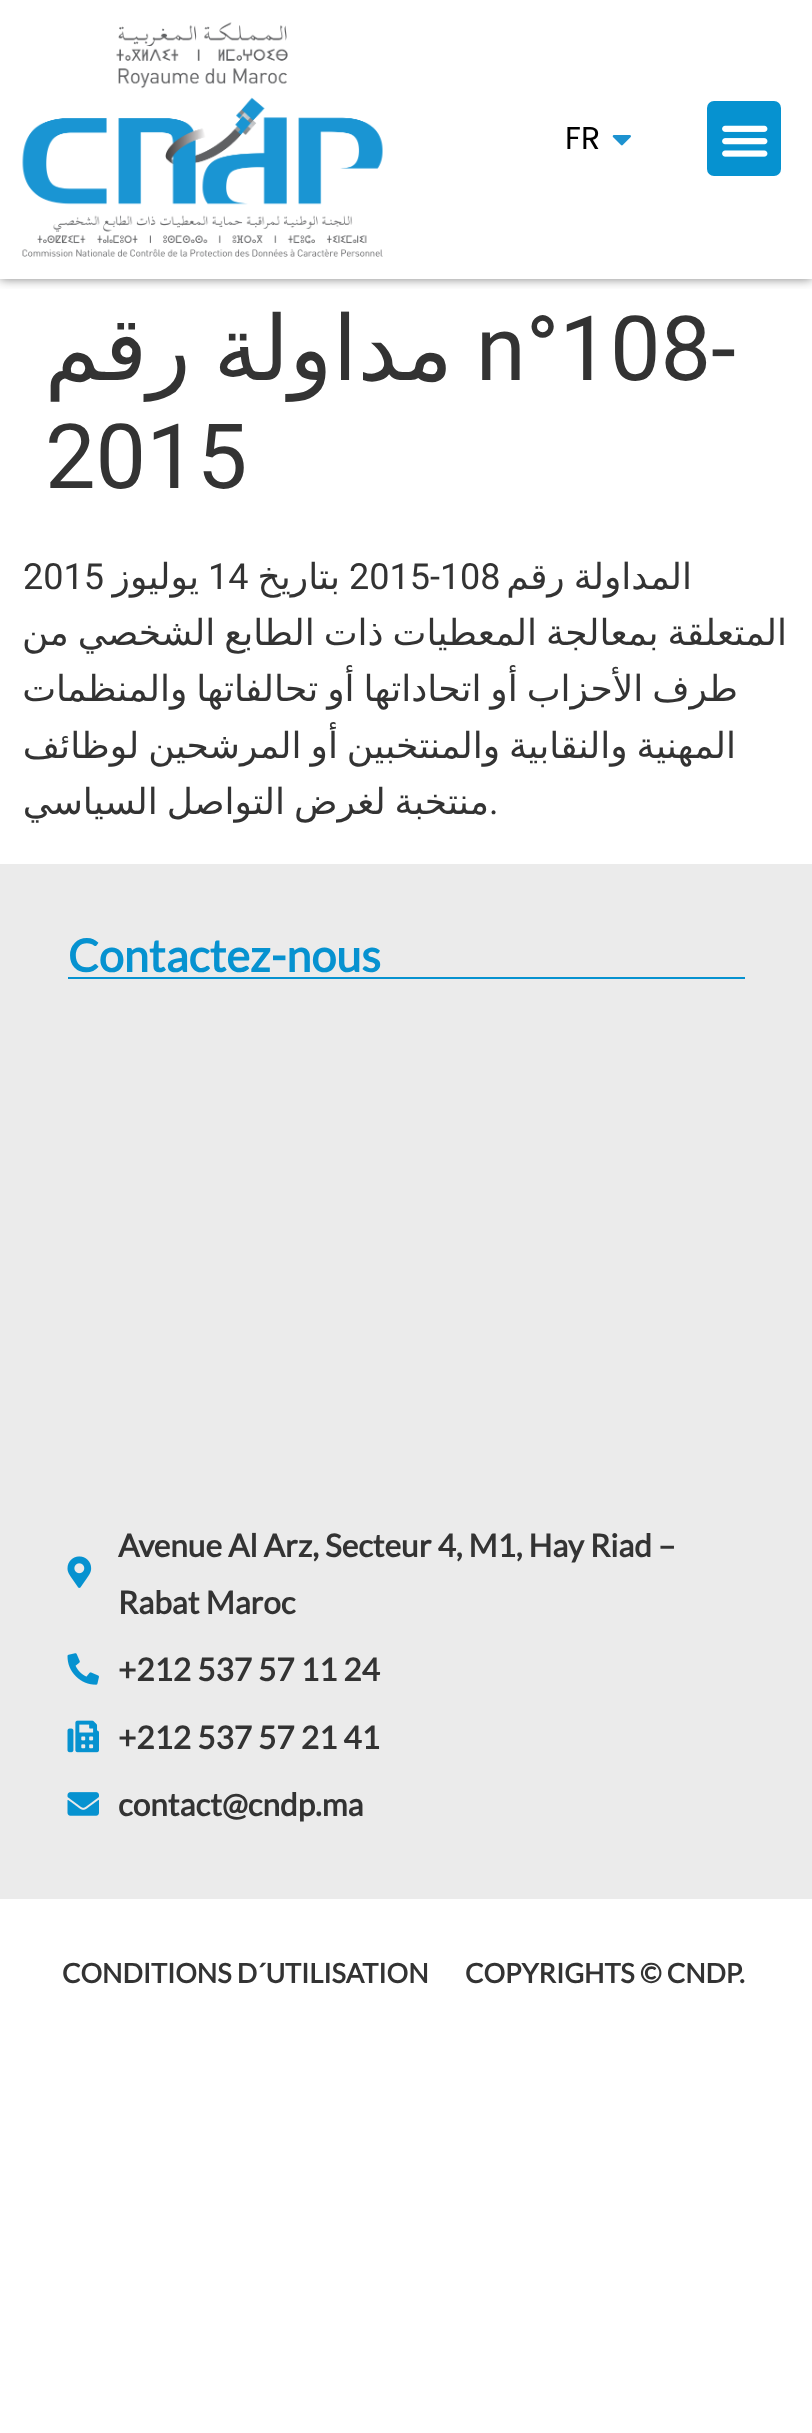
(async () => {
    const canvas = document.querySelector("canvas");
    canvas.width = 812;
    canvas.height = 2433;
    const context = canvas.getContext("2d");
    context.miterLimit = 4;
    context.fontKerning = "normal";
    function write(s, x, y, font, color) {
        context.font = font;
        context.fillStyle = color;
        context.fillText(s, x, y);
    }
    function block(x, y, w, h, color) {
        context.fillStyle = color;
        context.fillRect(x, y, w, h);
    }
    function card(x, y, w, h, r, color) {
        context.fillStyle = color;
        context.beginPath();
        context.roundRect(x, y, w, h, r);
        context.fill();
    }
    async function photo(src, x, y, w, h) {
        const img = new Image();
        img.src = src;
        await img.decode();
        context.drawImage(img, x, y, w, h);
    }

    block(0, 0, 812, 2433, "rgb(255, 255, 255)");
    context.save();
    context.beginPath();
    context.rect(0, 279, 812, 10);
    context.clip();
    context.fillStyle = "rgba(0, 0, 0, 0.5)";
    context.filter = "blur(5.5px)";
    context.beginPath();
    context.rect(0, 0, 812, 279);
    context.fill();
    context.filter = "none";
    context.restore();
    card(707, 101, 74, 75, 7, "rgb(6, 146, 208)");
    await photo("media/1.png", 722, 125, 46, 32);
    await photo("media/2.png", 612, 135, 19, 11);
    write("FR", 565, 149, "31.5px Poppins", "rgb(0, 0, 0)");
    await photo("media/3.png", 22, 22, 361, 235);
    write("n°108-", 476, 380, "90px Roboto", "rgb(51, 51, 51)");
    context.wordSpacing = "-6px";
    context.direction = "rtl";
    write("مداولة رقم", 453, 380, "90px DejaVu Sans", "rgb(51, 51, 51)");
    context.wordSpacing = "0px";
    context.direction = "ltr";
    write("2015", 45, 488, "90px Roboto", "rgb(51, 51, 51)");
    context.wordSpacing = "-2.5px";
    context.direction = "rtl";
    write("المداولة رقم", 692, 589, "36px DejaVu Sans", "rgb(51, 51, 51)");
    context.wordSpacing = "0px";
    context.direction = "ltr";
    write("2015-108", 349, 589, "36px Roboto", "rgb(51, 51, 51)");
    context.direction = "rtl";
    write("بتاريخ", 340, 589, "36px DejaVu Sans", "rgb(51, 51, 51)");
    context.direction = "ltr";
    write("14", 208, 589, "36px Roboto", "rgb(51, 51, 51)");
    context.direction = "rtl";
    write("يوليوز", 199, 589, "36px DejaVu Sans", "rgb(51, 51, 51)");
    context.direction = "ltr";
    write("2015", 23, 589, "36px Roboto", "rgb(51, 51, 51)");
    context.wordSpacing = "-2.5px";
    context.direction = "rtl";
    write("المتعلقة بمعالجة المعطيات ذات الطابع الشخصي من", 787, 645, "36px DejaVu Sans", "rgb(51, 51, 51)");
    write("طرف الأحزاب أو اتحاداتها أو تحالفاتها والمنظمات", 738, 701, "36px DejaVu Sans", "rgb(51, 51, 51)");
    write("المهنية والنقابية والمنتخبين أو المرشحين لوظائف", 736, 758, "36px DejaVu Sans", "rgb(51, 51, 51)");
    write("منتخبة لغرض التواصل السياسي", 489, 814, "36px DejaVu Sans", "rgb(51, 51, 51)");
    context.wordSpacing = "0px";
    context.direction = "ltr";
    write(".", 489, 814, "36px Roboto", "rgb(51, 51, 51)");
    block(0, 864, 812, 1035, "rgb(235, 235, 235)");
    block(68, 977, 677, 2, "rgb(6, 146, 208)");
    write("Contactez-nous", 68, 972, "bold 45px Lato", "rgb(6, 146, 208)");
    write("Avenue Al Arz, Secteur 4, M1, Hay Riad –", 118, 1557, "bold 31.5px Lato", "rgb(51, 51, 51)");
    write("Rabat Maroc", 118, 1614, "bold 31.5px Lato", "rgb(51, 51, 51)");
    await photo("media/4.png", 67, 1556, 25, 32);
    write("+212 537 57 11 24", 118, 1681, "bold 31.5px Lato", "rgb(51, 51, 51)");
    await photo("media/5.png", 67, 1653, 32, 32);
    write("+212 537 57 21 41", 118, 1749, "bold 31.5px Lato", "rgb(51, 51, 51)");
    await photo("media/6.png", 67, 1720, 32, 33);
    write("contact@cndp.ma", 118, 1816, "bold 31.5px Lato", "rgb(51, 51, 51)");
    await photo("media/7.png", 67, 1792, 32, 24);
    write("COPYRIGHTS © CNDP.", 465, 1983, "bold 27px Lato", "rgb(51, 51, 51)");
    write("CONDITIONS D´UTILISATION", 62, 1983, "bold 27px Lato", "rgb(51, 51, 51)");
})();
